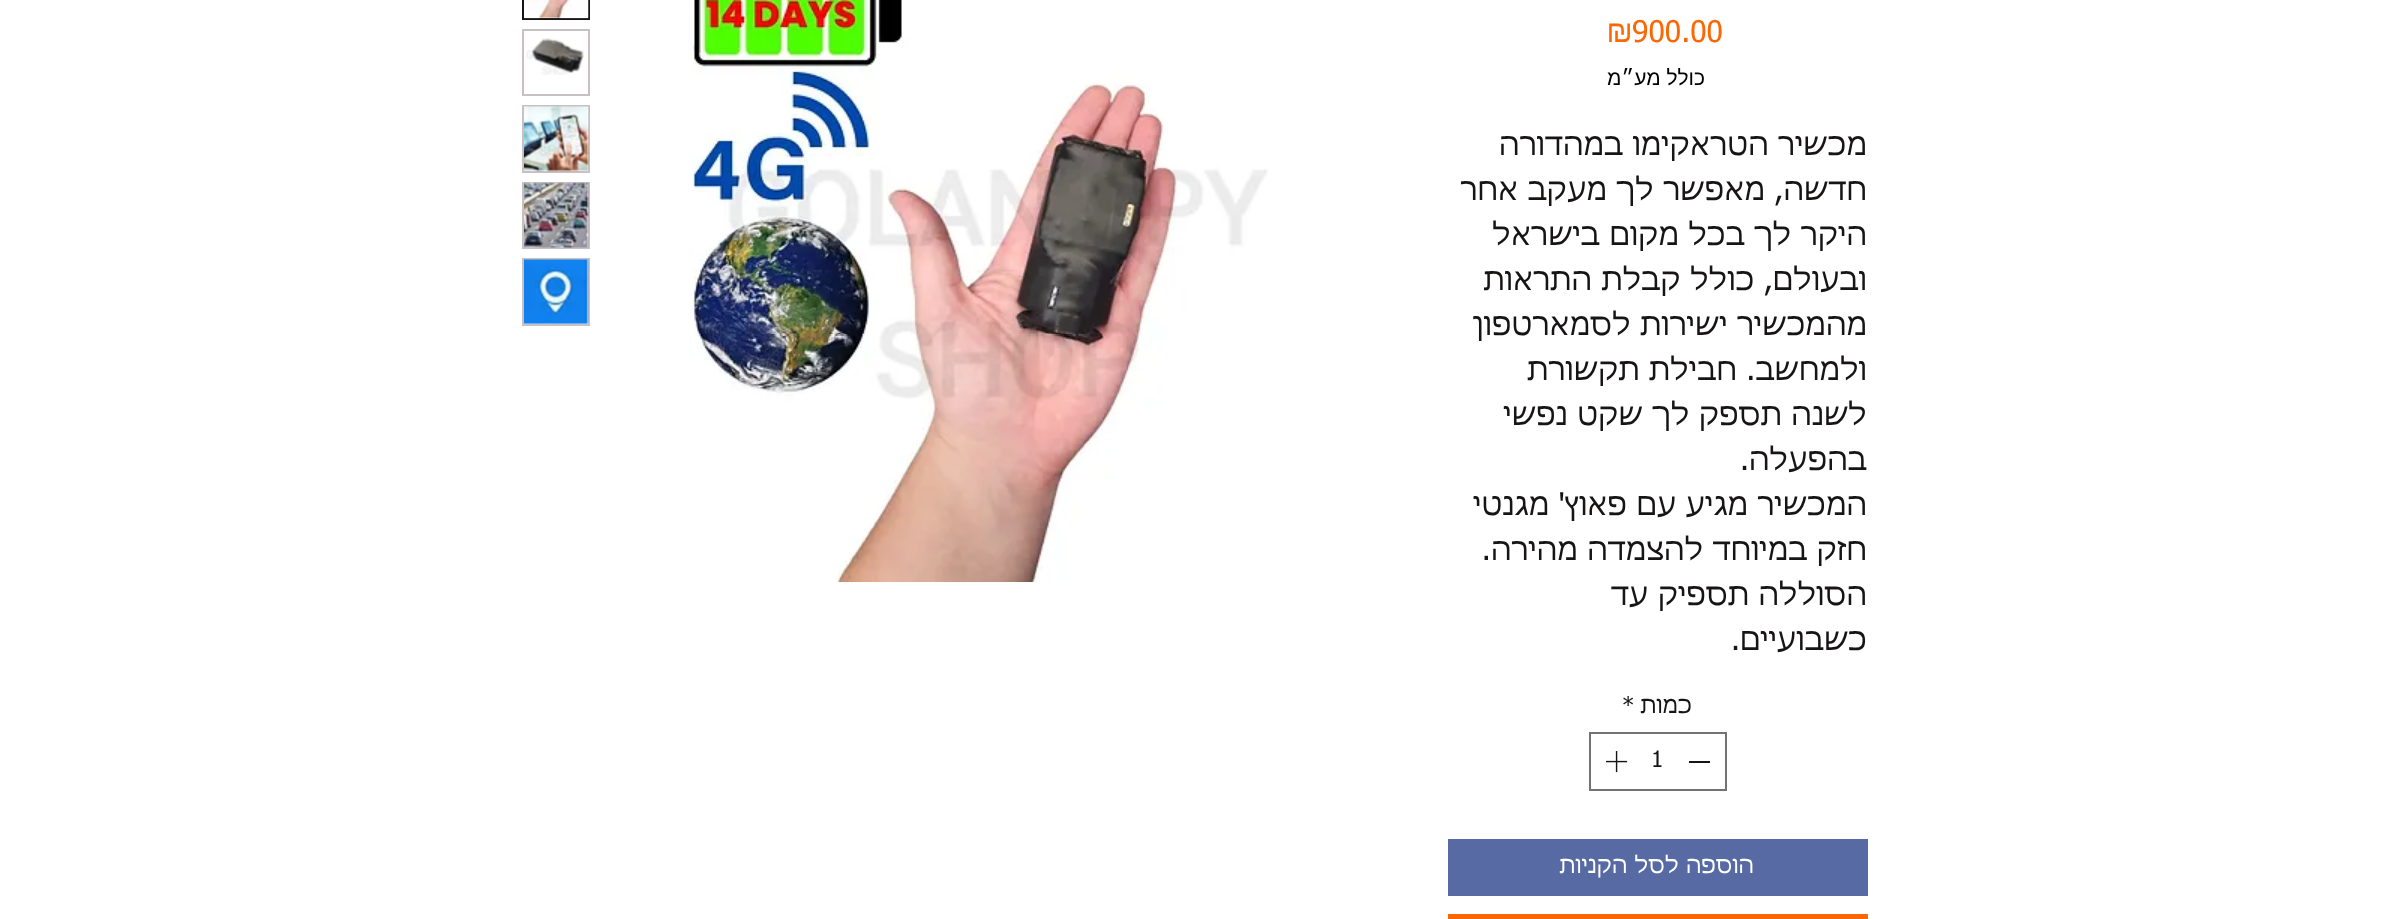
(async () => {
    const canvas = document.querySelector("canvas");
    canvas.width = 2382;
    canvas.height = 919;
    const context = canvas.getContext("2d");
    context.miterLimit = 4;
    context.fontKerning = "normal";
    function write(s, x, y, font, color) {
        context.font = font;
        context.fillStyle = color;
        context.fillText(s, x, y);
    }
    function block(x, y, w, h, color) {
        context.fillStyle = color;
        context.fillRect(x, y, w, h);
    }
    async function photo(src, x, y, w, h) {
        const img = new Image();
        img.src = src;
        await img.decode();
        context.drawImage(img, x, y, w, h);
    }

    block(0, 0, 2382, 919, "rgb(255, 255, 255)");
    write("900.00", 1632, 42, "30px 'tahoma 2'", "rgb(252, 103, 5)");
    write("₪", 1607, 42, "30px tahoma", "rgb(252, 103, 5)");
    context.direction = "rtl";
    write("כולל מע״מ", 1705, 85, "21px Liberation Sans", "rgb(0, 0, 0)");
    write("מכשיר הטראקימו במהדורה", 1867, 155, "30px tahoma", "rgb(23, 20, 20)");
    write("חדשה, מאפשר לך מעקב אחר", 1867, 200, "30px tahoma", "rgb(23, 20, 20)");
    write("היקר לך בכל מקום בישראל", 1867, 245, "30px tahoma", "rgb(23, 20, 20)");
    write("ובעולם, כולל קבלת התראות", 1867, 290, "30px tahoma", "rgb(23, 20, 20)");
    write("מהמכשיר ישירות לסמארטפון", 1867, 335, "30px tahoma", "rgb(23, 20, 20)");
    write("ולמחשב. חבילת תקשורת", 1867, 380, "30px tahoma", "rgb(23, 20, 20)");
    write("לשנה תספק לך שקט נפשי", 1867, 425, "30px tahoma", "rgb(23, 20, 20)");
    write("בהפעלה.", 1867, 470, "30px tahoma", "rgb(23, 20, 20)");
    write("המכשיר מגיע עם פאוץ' מגנטי", 1867, 515, "30px tahoma", "rgb(23, 20, 20)");
    write("חזק במיוחד להצמדה מהירה.", 1867, 560, "30px tahoma", "rgb(23, 20, 20)");
    write("הסוללה תספיק עד", 1867, 605, "30px tahoma", "rgb(23, 20, 20)");
    write("כשבועיים.", 1867, 650, "30px tahoma", "rgb(23, 20, 20)");
    write("כמות", 1692, 713, "22.5px tahoma", "rgb(23, 20, 20)");
    context.direction = "ltr";
    write("*", 1622, 713, "22.5px 'tahoma 2'", "rgb(23, 20, 20)");
    context.strokeStyle = "rgb(116, 114, 114)";
    context.lineWidth = 2;
    context.strokeRect(1590, 733, 136, 57);
    block(1689, 761, 21, 2, "rgb(23, 20, 20)");
    write("1", 1651, 767, "22.5px 'tahoma 2'", "rgb(23, 20, 20)");
    await photo("media/1.png", 1606, 751, 22, 22);
    block(1448, 839, 420, 57, "rgb(87, 106, 163)");
    context.direction = "rtl";
    write("הוספה לסל הקניות", 1754, 873, "22.5px tahoma", "rgb(255, 255, 255)");
    block(1448, 914, 420, 5, "rgb(252, 103, 5)");
    await photo("media/2.png", 690, 0, 578, 582);
    context.strokeStyle = "rgb(23, 20, 20)";
    context.strokeRect(523, -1, 66, 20);
    await photo("media/3.png", 524, 0, 65, 19);
    context.strokeStyle = "rgb(201, 193, 193)";
    context.strokeRect(523, 30, 66, 65);
    await photo("media/4.png", 526, 38, 58, 37);
    context.strokeRect(523, 106, 66, 66);
    await photo("media/5.png", 524, 106, 65, 66);
    context.strokeRect(523, 183, 66, 65);
    await photo("media/6.png", 524, 182, 65, 66);
    context.strokeRect(523, 259, 66, 66);
    await photo("media/7.png", 524, 259, 65, 65);
})();
